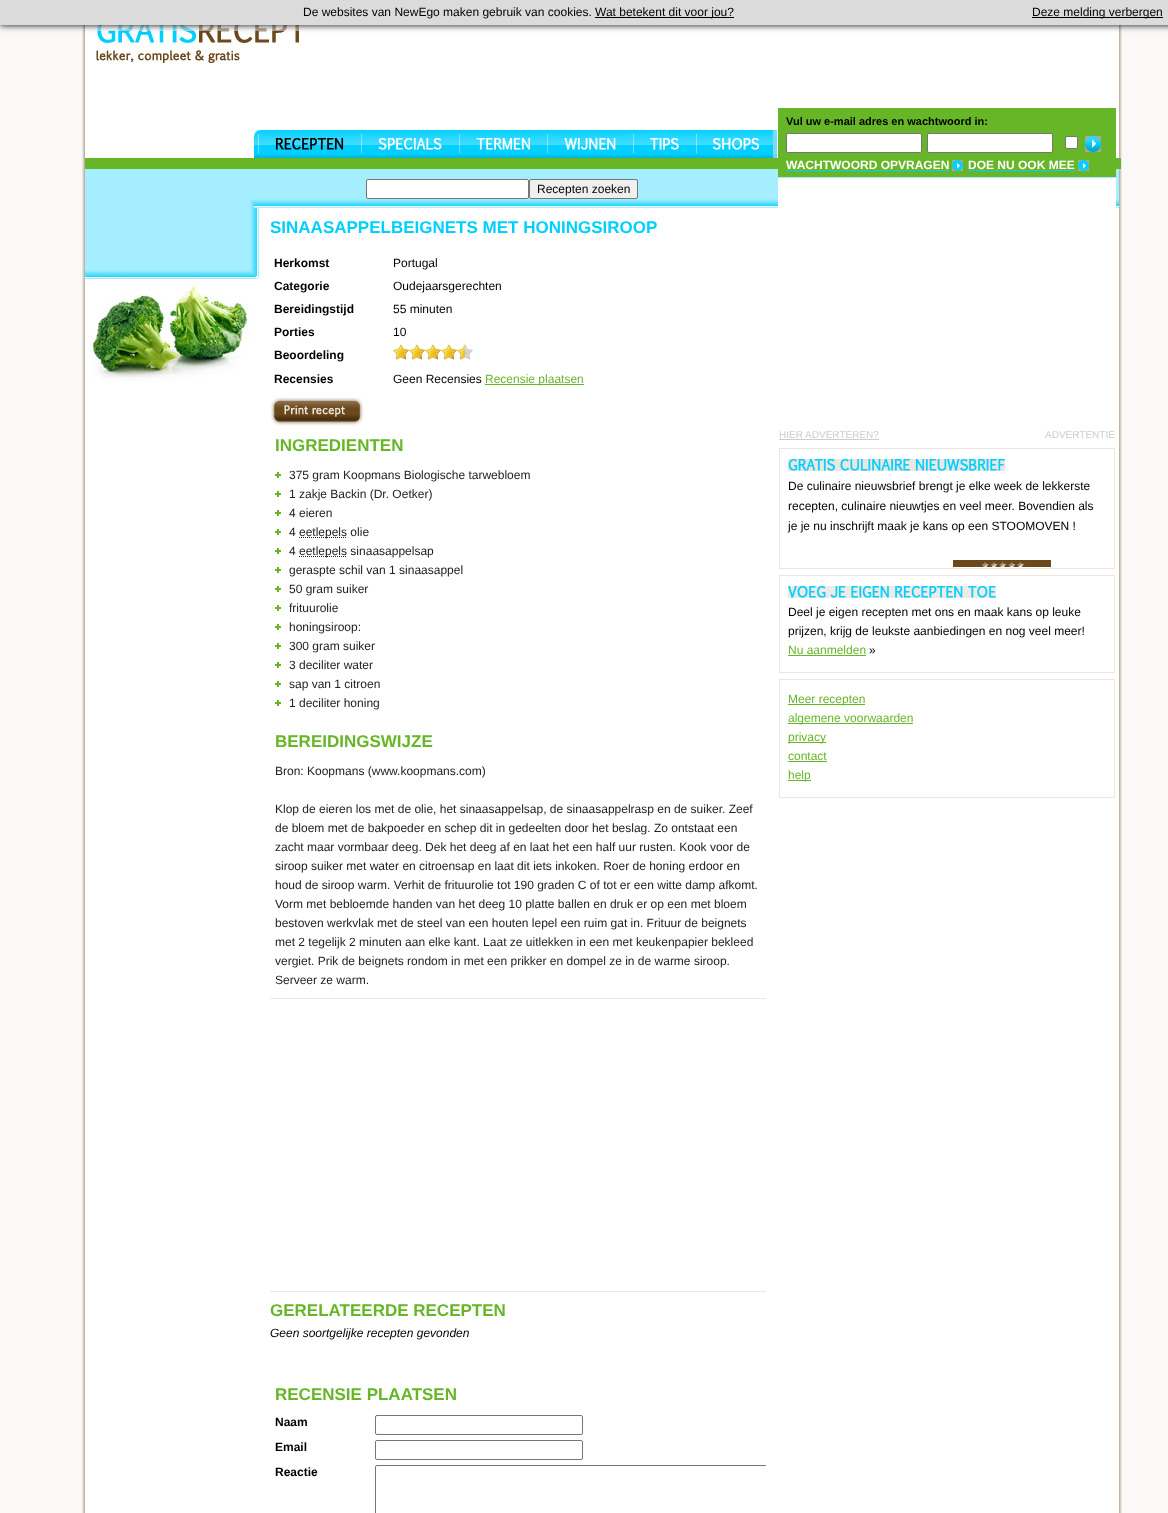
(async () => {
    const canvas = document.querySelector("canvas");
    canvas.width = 1168;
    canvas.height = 1513;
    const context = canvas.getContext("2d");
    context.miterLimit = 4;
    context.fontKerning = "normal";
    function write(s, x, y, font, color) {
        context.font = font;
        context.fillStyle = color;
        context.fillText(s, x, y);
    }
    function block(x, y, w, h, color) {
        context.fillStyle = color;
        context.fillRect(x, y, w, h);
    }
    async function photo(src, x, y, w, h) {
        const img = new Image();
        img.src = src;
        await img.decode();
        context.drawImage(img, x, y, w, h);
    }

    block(0, 0, 1168, 1513, "rgb(250, 249, 247)");
    await photo("media/1.png", 82, 25, 1040, 1488);
    await photo("media/2.png", 96, 25, 203, 38);
    context.fillStyle = "rgb(0, 0, 0)";
    context.filter = "blur(3.5px)";
    context.beginPath();
    context.rect(0, 0, 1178, 25);
    context.fill();
    context.filter = "none";
    block(0, 0, 1168, 25, "rgb(219, 219, 219)");
    write("De websites van NewEgo maken gebruik van cookies.", 303, 16, "12px Liberation Sans", "rgb(0, 0, 0)");
    block(595, 17, 139, 1, "rgb(0, 0, 0)");
    write("Wat betekent dit voor jou?", 595, 16, "12px Liberation Sans", "rgb(0, 0, 0)");
    block(1032, 17, 131, 1, "rgb(0, 0, 0)");
    write("Deze melding verbergen", 1032, 16, "12px Liberation Sans", "rgb(0, 0, 0)");
    await photo("media/3.png", 254, 130, 523, 28);
    await photo("media/4.png", 258, 134, 1, 19);
    await photo("media/5.png", 275, 138, 69, 12);
    await photo("media/4.png", 361, 134, 1, 19);
    await photo("media/6.png", 378, 138, 64, 12);
    await photo("media/4.png", 459, 134, 1, 19);
    await photo("media/7.png", 476, 138, 54, 12);
    await photo("media/4.png", 547, 134, 1, 19);
    await photo("media/8.png", 564, 138, 52, 12);
    await photo("media/4.png", 633, 134, 1, 19);
    await photo("media/9.png", 650, 138, 29, 12);
    await photo("media/4.png", 696, 134, 1, 19);
    await photo("media/10.png", 713, 138, 46, 12);
    block(85, 158, 1036, 11, "rgb(103, 182, 40)");
    block(85, 169, 169, 110, "rgb(165, 238, 255)");
    await photo("media/14.png", 250, 199, 9, 80);
    await photo("media/16.png", 254, 169, 865, 39);
    block(778, 108, 338, 69, "rgb(103, 182, 40)");
    write("Vul uw e-mail adres en wachtwoord in:", 786, 125, "bold 11px Liberation Sans", "rgb(0, 0, 0)");
    context.fillStyle = "rgb(255, 255, 255)";
    context.beginPath();
    context.roundRect(786.5, 133.5, 135, 19, 1.5);
    context.fill();
    context.strokeStyle = "rgb(118, 118, 118)";
    context.stroke();
    context.beginPath();
    context.roundRect(927.5, 133.5, 125, 19, 1.5);
    context.fill();
    context.stroke();
    context.beginPath();
    context.roundRect(1065.5, 136.5, 12, 12, 1.5);
    context.fill();
    context.stroke();
    await photo("media/11.png", 1085, 136, 16, 16);
    await photo("media/12.png", 952, 160, 11, 11);
    write("WACHTWOORD OPVRAGEN", 786, 169, "bold 12px Liberation Sans", "rgb(255, 255, 255)");
    block(786, 170, 163, 1, "rgb(0, 208, 255)");
    await photo("media/12.png", 1078, 160, 11, 11);
    write("DOE NU OOK MEE", 968, 169, "bold 12px Liberation Sans", "rgb(255, 255, 255)");
    block(968, 170, 107, 1, "rgb(0, 208, 255)");
    await photo("media/13.png", 85, 270, 165, 8);
    await photo("media/15.png", 89, 279, 160, 103);
    context.fillStyle = "rgb(255, 255, 255)";
    context.beginPath();
    context.roundRect(366.5, 179.5, 162, 19, 1.5);
    context.fill();
    context.stroke();
    context.fillStyle = "rgb(239, 239, 239)";
    context.beginPath();
    context.roundRect(529.5, 179.5, 108, 19, 1.5);
    context.fill();
    context.stroke();
    write("Recepten zoeken", 537, 193, "12px Liberation Sans", "rgb(0, 0, 0)");
    write("SINAASAPPELBEIGNETS MET HONINGSIROOP", 270, 233, "bold 17px Liberation Sans", "rgb(0, 208, 255)");
    write("Herkomst", 274, 267, "bold 12px Liberation Sans", "rgb(0, 0, 0)");
    write("Portugal", 393, 267, "12px Liberation Sans", "rgb(0, 0, 0)");
    write("Categorie", 274, 290, "bold 12px Liberation Sans", "rgb(0, 0, 0)");
    write("Oudejaarsgerechten", 393, 290, "12px Liberation Sans", "rgb(0, 0, 0)");
    write("Bereidingstijd", 274, 313, "bold 12px Liberation Sans", "rgb(0, 0, 0)");
    write("55 minuten", 393, 313, "12px Liberation Sans", "rgb(0, 0, 0)");
    write("Porties", 274, 336, "bold 12px Liberation Sans", "rgb(0, 0, 0)");
    write("10", 393, 336, "12px Liberation Sans", "rgb(0, 0, 0)");
    write("Beoordeling", 274, 359, "bold 12px Liberation Sans", "rgb(0, 0, 0)");
    await photo("media/17.png", 465, 344, 8, 16);
    await photo("media/18.png", 393, 344, 72, 16);
    write("Recensies", 274, 383, "bold 12px Liberation Sans", "rgb(0, 0, 0)");
    write("Geen Recensies", 393, 383, "12px Liberation Sans", "rgb(0, 0, 0)");
    block(485, 384, 99, 1, "rgb(103, 182, 40)");
    write("Recensie plaatsen", 485, 383, "12px Liberation Sans", "rgb(103, 182, 40)");
    await photo("media/19.png", 270, 397, 94, 29);
    write("INGREDIENTEN", 275, 451, "bold 17px Liberation Sans", "rgb(103, 182, 40)");
    await photo("media/20.png", 275, 472, 6, 6);
    write("375 gram Koopmans Biologische tarwebloem", 289, 479, "12px Liberation Sans", "rgb(34, 34, 34)");
    await photo("media/20.png", 275, 491, 6, 6);
    write("1 zakje Backin (Dr. Oetker)", 289, 498, "12px Liberation Sans", "rgb(34, 34, 34)");
    await photo("media/20.png", 275, 510, 6, 6);
    write("4 eieren", 289, 517, "12px Liberation Sans", "rgb(34, 34, 34)");
    await photo("media/20.png", 275, 529, 6, 6);
    write("4", 289, 536, "12px Liberation Sans", "rgb(34, 34, 34)");
    context.beginPath();
    context.moveTo(299, 537.5);
    context.lineTo(347, 537.5);
    context.strokeStyle = "rgb(34, 34, 34)";
    context.setLineDash([1, 1]);
    context.stroke();
    write("eetlepels olie", 299, 536, "12px Liberation Sans", "rgb(34, 34, 34)");
    await photo("media/20.png", 275, 548, 6, 6);
    write("4", 289, 555, "12px Liberation Sans", "rgb(34, 34, 34)");
    context.beginPath();
    context.moveTo(299, 556.5);
    context.lineTo(347, 556.5);
    context.stroke();
    write("eetlepels sinaasappelsap", 299, 555, "12px Liberation Sans", "rgb(34, 34, 34)");
    await photo("media/20.png", 275, 567, 6, 6);
    write("geraspte schil van 1 sinaasappel", 289, 574, "12px Liberation Sans", "rgb(34, 34, 34)");
    await photo("media/20.png", 275, 586, 6, 6);
    write("50 gram suiker", 289, 593, "12px Liberation Sans", "rgb(34, 34, 34)");
    await photo("media/20.png", 275, 605, 6, 6);
    write("frituurolie", 289, 612, "12px Liberation Sans", "rgb(34, 34, 34)");
    await photo("media/20.png", 275, 624, 6, 6);
    write("honingsiroop:", 289, 631, "12px Liberation Sans", "rgb(34, 34, 34)");
    await photo("media/20.png", 275, 643, 6, 6);
    write("300 gram suiker", 289, 650, "12px Liberation Sans", "rgb(34, 34, 34)");
    await photo("media/20.png", 275, 662, 6, 6);
    write("3 deciliter water", 289, 669, "12px Liberation Sans", "rgb(34, 34, 34)");
    await photo("media/20.png", 275, 681, 6, 6);
    write("sap van 1 citroen", 289, 688, "12px Liberation Sans", "rgb(34, 34, 34)");
    await photo("media/20.png", 275, 700, 6, 6);
    write("1 deciliter honing", 289, 707, "12px Liberation Sans", "rgb(34, 34, 34)");
    write("BEREIDINGSWIJZE", 275, 747, "bold 17px Liberation Sans", "rgb(103, 182, 40)");
    write("Bron: Koopmans (www.koopmans.com)", 275, 775, "12px Liberation Sans", "rgb(34, 34, 34)");
    write("Klop de eieren los met de olie, het sinaasappelsap, de sinaasappelrasp en de suiker. Zeef", 275, 813, "12px Liberation Sans", "rgb(34, 34, 34)");
    write("de bloem met de bakpoeder en schep dit in gedeelten door het beslag. Zo ontstaat een", 275, 832, "12px Liberation Sans", "rgb(34, 34, 34)");
    write("zacht maar vormbaar deeg. Dek het deeg af en laat het een half uur rusten. Kook voor de", 275, 851, "12px Liberation Sans", "rgb(34, 34, 34)");
    write("siroop suiker met water en citroensap en laat dit iets inkoken. Roer de honing erdoor en", 275, 870, "12px Liberation Sans", "rgb(34, 34, 34)");
    write("houd de siroop warm. Verhit de frituurolie tot 190 graden C of tot er een witte damp afkomt.", 275, 889, "12px Liberation Sans", "rgb(34, 34, 34)");
    write("Vorm met bebloemde handen van het deeg 10 platte ballen en druk er op een met bloem", 275, 908, "12px Liberation Sans", "rgb(34, 34, 34)");
    write("bestoven werkvlak met de steel van een houten lepel een ruim gat in. Frituur de beignets", 275, 927, "12px Liberation Sans", "rgb(34, 34, 34)");
    write("met 2 tegelijk 2 minuten aan elke kant. Laat ze uitlekken in een met keukenpapier bekleed", 275, 946, "12px Liberation Sans", "rgb(34, 34, 34)");
    write("vergiet. Prik de beignets rondom in met een prikker en dompel ze in de warme siroop.", 275, 965, "12px Liberation Sans", "rgb(34, 34, 34)");
    write("Serveer ze warm.", 275, 984, "12px Liberation Sans", "rgb(34, 34, 34)");
    block(270, 998, 496, 1, "rgb(235, 230, 224)");
    block(270, 1291, 496, 1, "rgb(235, 230, 224)");
    write("GERELATEERDE RECEPTEN", 270, 1316, "bold 17px Liberation Sans", "rgb(103, 182, 40)");
    write("Geen soortgelijke recepten gevonden", 270, 1337, "italic 12px Liberation Sans", "rgb(0, 0, 0)");
    write("RECENSIE PLAATSEN", 275, 1400, "bold 17px Liberation Sans", "rgb(103, 182, 40)");
    write("Naam", 275, 1426, "bold 12px Liberation Sans", "rgb(0, 0, 0)");
    context.beginPath();
    context.roundRect(375.5, 1415.5, 207, 19, 1.5);
    context.strokeStyle = "rgb(118, 118, 118)";
    context.setLineDash([]);
    context.stroke();
    write("Email", 275, 1451, "bold 12px Liberation Sans", "rgb(0, 0, 0)");
    context.beginPath();
    context.roundRect(375.5, 1440.5, 207, 19, 1.5);
    context.stroke();
    write("Reactie", 275, 1476, "bold 12px Liberation Sans", "rgb(0, 0, 0)");
    context.save();
    context.beginPath();
    context.rect(266, 179, 500, 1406);
    context.clip();
    context.beginPath();
    context.roundRect(375.5, 1465.5, 503, 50, 1.5);
    context.stroke();
    context.restore();
    write("HIER ADVERTEREN?", 779, 438, "10px Liberation Sans", "rgb(204, 204, 204)");
    block(779, 439, 100, 1, "rgb(204, 204, 204)");
    write("ADVERTENTIE", 1045, 438, "10px Liberation Sans", "rgb(204, 204, 204)");
    context.strokeStyle = "rgb(235, 230, 224)";
    context.strokeRect(779.5, 448.5, 335, 120);
    await photo("media/21.png", 953, 560, 98, 7);
    await photo("media/22.png", 788, 459, 217, 12);
    write("De culinaire nieuwsbrief brengt je elke week de lekkerste", 788, 490, "12px Liberation Sans", "rgb(0, 0, 0)");
    write("recepten, culinaire nieuwtjes en veel meer. Bovendien als", 788, 510, "12px Liberation Sans", "rgb(0, 0, 0)");
    write("je je nu inschrijft maak je kans op een STOOMOVEN !", 788, 530, "12px Liberation Sans", "rgb(0, 0, 0)");
    context.strokeRect(779.5, 575.5, 335, 97);
    await photo("media/23.png", 788, 586, 208, 12);
    write("Deel je eigen recepten met ons en maak kans op leuke", 788, 616, "12px Liberation Sans", "rgb(0, 0, 0)");
    write("prijzen, krijg de leukste aanbiedingen en nog veel meer!", 788, 635, "12px Liberation Sans", "rgb(0, 0, 0)");
    write("Nu aanmelden", 788, 654, "12px Liberation Sans", "rgb(103, 182, 40)");
    block(788, 655, 78, 1, "rgb(103, 182, 40)");
    write("»", 869, 654, "12px Liberation Sans", "rgb(0, 0, 0)");
    context.strokeRect(779.5, 679.5, 335, 118);
    block(788, 704, 77, 1, "rgb(103, 182, 40)");
    write("Meer recepten", 788, 703, "12px Liberation Sans", "rgb(103, 182, 40)");
    block(788, 723, 125, 1, "rgb(103, 182, 40)");
    write("algemene voorwaarden", 788, 722, "12px Liberation Sans", "rgb(103, 182, 40)");
    block(788, 742, 38, 1, "rgb(103, 182, 40)");
    write("privacy", 788, 741, "12px Liberation Sans", "rgb(103, 182, 40)");
    write("contact", 788, 760, "12px Liberation Sans", "rgb(103, 182, 40)");
    block(788, 761, 39, 1, "rgb(103, 182, 40)");
    block(788, 780, 23, 1, "rgb(103, 182, 40)");
    write("help", 788, 779, "12px Liberation Sans", "rgb(103, 182, 40)");
})();
